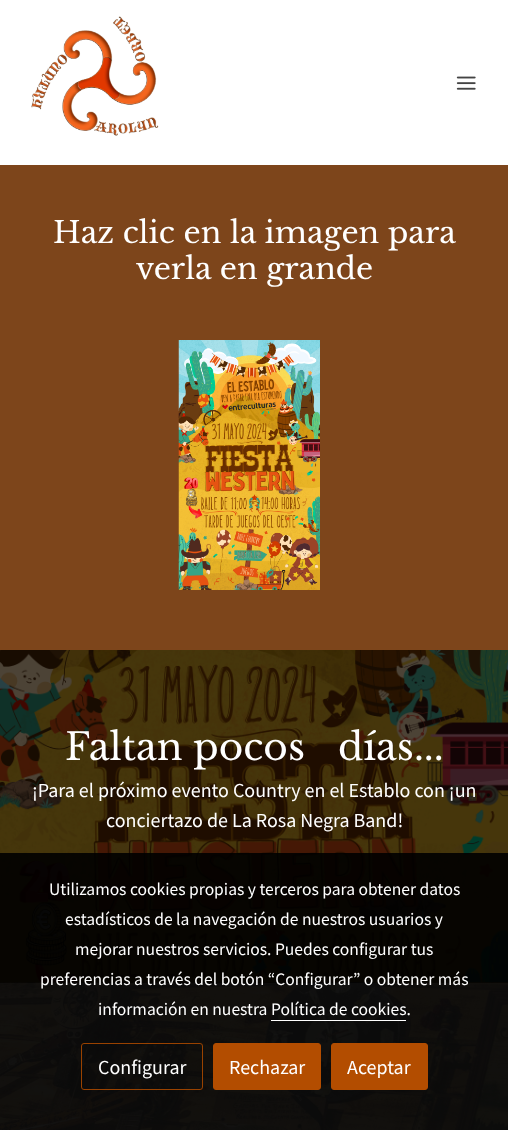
(async () => {
    const canvas = document.querySelector("canvas");
    canvas.width = 508;
    canvas.height = 1130;
    const context = canvas.getContext("2d");
    context.miterLimit = 4;
    context.fontKerning = "normal";
    function write(s, x, y, font, color) {
        context.font = font;
        context.fillStyle = color;
        context.fillText(s, x, y);
    }
    function block(x, y, w, h, color) {
        context.fillStyle = color;
        context.fillRect(x, y, w, h);
    }
    async function photo(src, x, y, w, h) {
        const img = new Image();
        img.src = src;
        await img.decode();
        context.drawImage(img, x, y, w, h);
    }

    block(0, 0, 508, 1130, "rgb(255, 255, 255)");
    await photo("media/1.png", 31, 16, 128, 120);
    await photo("media/2.png", 456, 76, 20, 14);
    block(0, 165, 508, 485, "rgb(125, 69, 27)");
    write("Haz clic en la imagen para", 53, 243, "30px Libre Baskerville", "rgb(255, 255, 255)");
    write("verla en grande", 136, 279, "30px Libre Baskerville", "rgb(255, 255, 255)");
    await photo("media/3.png", 178, 340, 142, 250);
    await photo("media/6.png", 0, 982, 508, 1);
    await photo("media/4.png", 0, 650, 508, 333);
    block(0, 650, 508, 333, "rgba(0, 0, 0, 0.7)");
    write("Faltan pocos", 65, 760, "37.5px Libre Baskerville", "rgb(255, 255, 255)");
    write("días...", 338, 760, "37.5px Libre Baskerville", "rgb(255, 255, 255)");
    write("¡Para el próximo evento Country en el Establo con ¡un", 32, 797, "20px Source Sans Pro", "rgb(255, 255, 255)");
    write("conciertazo de La Rosa Negra Band!", 106, 827, "20px Source Sans Pro", "rgb(255, 255, 255)");
    await photo("media/5.png", 0, 982, 508, 148);
    block(0, 853, 508, 277, "rgba(0, 0, 0, 0.9)");
    write("Utilizamos cookies propias y terceros para obtener datos", 49, 895, "17.5px Source Sans Pro", "rgb(255, 255, 255)");
    write("estadísticos de la navegación de nuestros usuarios y", 65, 925, "17.5px Source Sans Pro", "rgb(255, 255, 255)");
    write("mejorar nuestros servicios. Puedes configurar tus", 75, 955, "17.5px Source Sans Pro", "rgb(255, 255, 255)");
    write("preferencias a través del botón “Configurar” o obtener más", 40, 985, "17.5px Source Sans Pro", "rgb(255, 255, 255)");
    write("información en nuestra Política de cookies.", 98, 1015, "17.5px Source Sans Pro", "rgb(255, 255, 255)");
    block(271, 1020, 135, 1, "rgb(255, 255, 255)");
    context.beginPath();
    context.roundRect(81.5, 1043.5, 121, 46, 2.5);
    context.strokeStyle = "rgb(153, 66, 0)";
    context.stroke();
    write("Configurar", 98, 1074, "20px Source Sans Pro", "rgb(255, 255, 255)");
    context.fillStyle = "rgb(179, 77, 0)";
    context.beginPath();
    context.roundRect(213.5, 1043.5, 107, 46, 2.5);
    context.fill();
    context.strokeStyle = "rgb(179, 77, 0)";
    context.stroke();
    write("Rechazar", 229, 1074, "20px Source Sans Pro", "rgb(255, 255, 255)");
    context.fillStyle = "rgb(179, 77, 0)";
    context.beginPath();
    context.roundRect(331.5, 1043.5, 96, 46, 2.5);
    context.fill();
    context.stroke();
    write("Aceptar", 347, 1074, "20px Source Sans Pro", "rgb(255, 255, 255)");
})();
